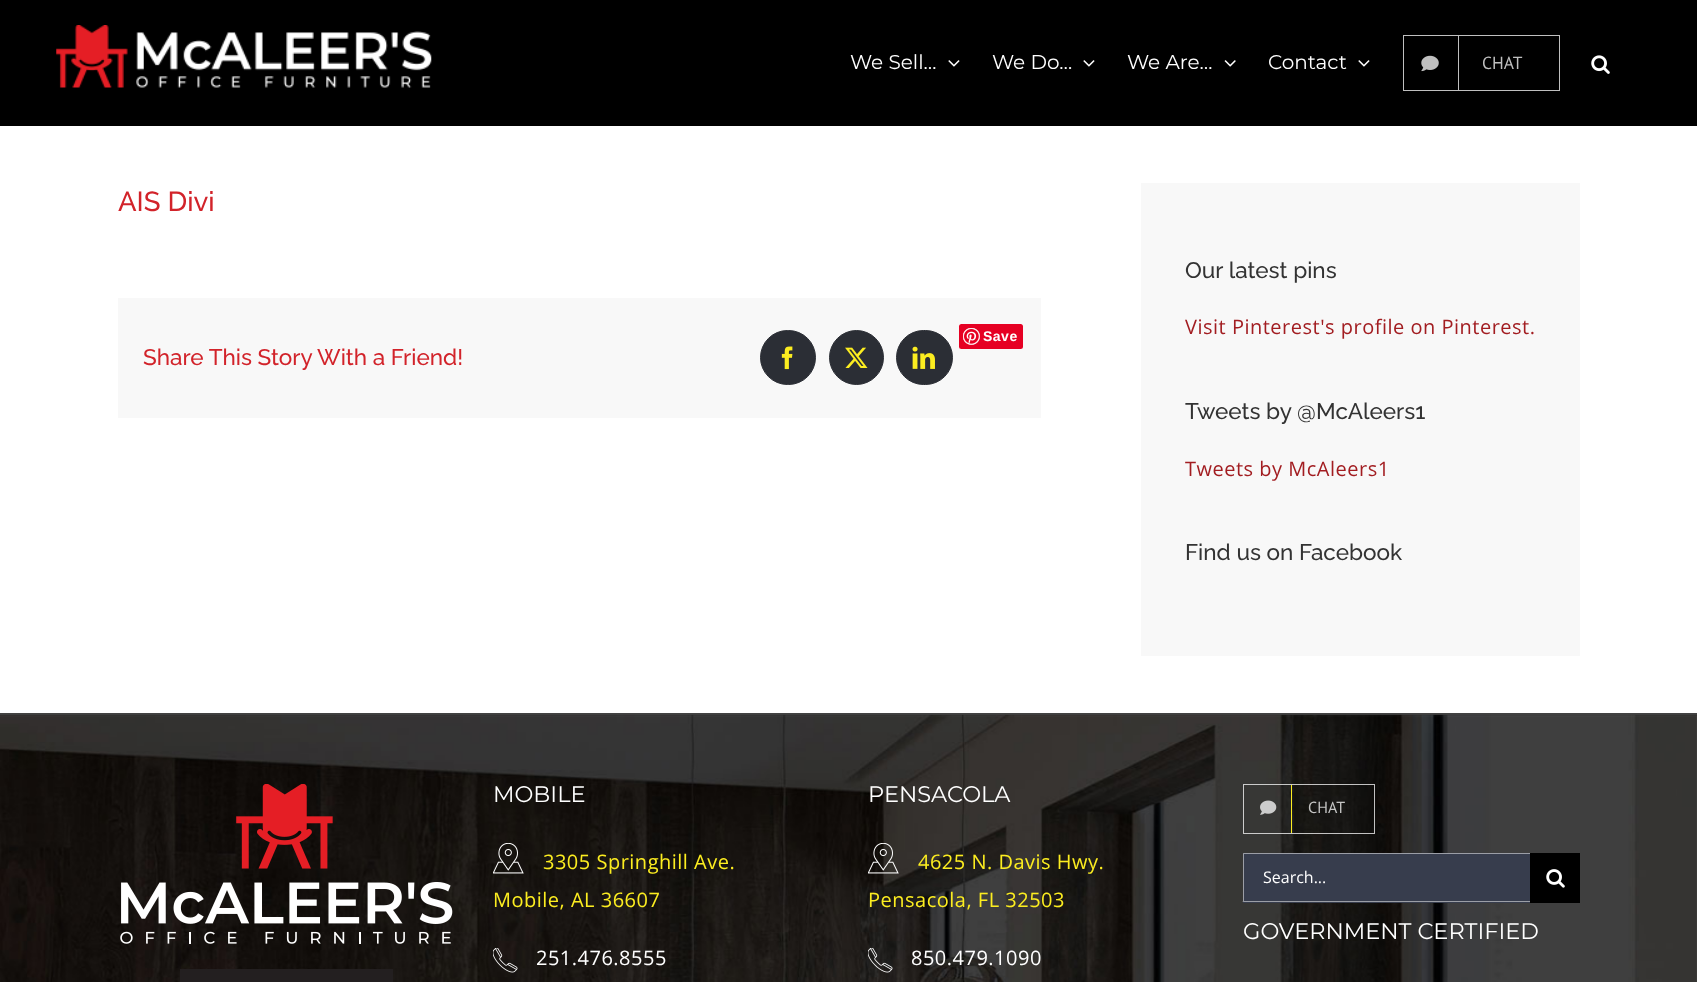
(async () => {
    const canvas = document.querySelector("canvas");
    canvas.width = 1697;
    canvas.height = 982;
    const context = canvas.getContext("2d");
    context.miterLimit = 4;
    context.fontKerning = "normal";
    function write(s, x, y, font, color) {
        context.font = font;
        context.fillStyle = color;
        context.fillText(s, x, y);
    }
    function block(x, y, w, h, color) {
        context.fillStyle = color;
        context.fillRect(x, y, w, h);
    }
    function card(x, y, w, h, r, color) {
        context.fillStyle = color;
        context.beginPath();
        context.roundRect(x, y, w, h, r);
        context.fill();
    }
    async function photo(src, x, y, w, h) {
        const img = new Image();
        img.src = src;
        await img.decode();
        context.drawImage(img, x, y, w, h);
    }

    block(0, 0, 1697, 982, "rgb(255, 255, 255)");
    block(0, 0, 1697, 126, "rgb(0, 0, 0)");
    await photo("media/1.png", 56, 25, 376, 63);
    write("We Sell…", 850, 69, "100 20px Montserrat", "rgb(255, 255, 255)");
    await photo("media/2.png", 948, 60, 12, 7);
    write("We Do…", 992, 69, "100 20px Montserrat", "rgb(255, 255, 255)");
    await photo("media/2.png", 1083, 60, 12, 7);
    write("We Are…", 1127, 69, "100 20px Montserrat", "rgb(255, 255, 255)");
    await photo("media/3.png", 1224, 60, 12, 7);
    write("Contact", 1268, 69, "100 20px Montserrat", "rgb(255, 255, 255)");
    await photo("media/2.png", 1358, 60, 12, 7);
    context.strokeStyle = "rgb(191, 191, 191)";
    context.strokeRect(1403.5, 35.5, 156, 55);
    block(1458, 36, 1, 54, "rgb(191, 191, 191)");
    await photo("media/4.png", 1421, 55, 18, 17);
    write("CHAT", 1482, 69, "17.5px PT Sans", "rgb(191, 191, 191)");
    await photo("media/5.png", 1591, 55, 19, 19);
    write("AIS Divi", 118, 211, "100 27.5px Raleway", "rgb(210, 35, 42)");
    block(118, 298, 923, 120, "rgb(248, 248, 248)");
    context.fillStyle = "rgb(43, 46, 53)";
    context.beginPath();
    context.roundRect(760.5, 330.5, 55, 54, 27);
    context.fill();
    context.strokeStyle = "rgb(43, 46, 53)";
    context.stroke();
    await photo("media/6.png", 781, 346, 12, 24);
    context.beginPath();
    context.arc(856.5, 357.5, 27, 0, Math.PI * 2);
    context.fill();
    context.stroke();
    await photo("media/7.png", 845, 347, 23, 21);
    context.beginPath();
    context.roundRect(896.5, 330.5, 56, 54, 27);
    context.fill();
    context.stroke();
    await photo("media/8.png", 912, 346, 23, 23);
    card(959, 324, 64, 25, 2.5, "rgb(230, 0, 35)");
    await photo("media/9.png", 963, 328, 17, 17);
    context.letterSpacing = "0.5px";
    write("Save", 983, 341, "bold 14px Liberation Sans", "rgb(255, 255, 255)");
    context.letterSpacing = "0px";
    write("Share This Story With a Friend!", 143, 365, "100 22.5px Raleway", "rgb(210, 35, 42)");
    block(1141, 183, 439, 473, "rgb(248, 248, 248)");
    write("Our latest pins", 1185, 278, "100 22.5px Raleway", "rgb(51, 51, 51)");
    context.letterSpacing = "0.5px";
    write("Visit Pinterest's profile on Pinterest.", 1185, 334, "20px Open Sans", "rgb(162, 29, 33)");
    context.letterSpacing = "0px";
    write("Tweets by @McAleers1", 1185, 419, "100 22.5px Raleway", "rgb(51, 51, 51)");
    context.letterSpacing = "0.5px";
    write("Tweets by McAleers1", 1185, 476, "20px Open Sans", "rgb(162, 29, 33)");
    context.letterSpacing = "0px";
    write("Find us on Facebook", 1185, 560, "100 22.5px Raleway", "rgb(51, 51, 51)");
    block(0, 713, 1697, 3, "rgb(66, 66, 66)");
    await photo("media/10.png", 0, 714, 1697, 268);
    await photo("media/11.png", 120, 784, 333, 160);
    block(180, 969, 213, 13, "rgb(35, 31, 32)");
    write("MOBILE", 493, 802, "100 22.5px Montserrat", "rgb(255, 255, 255)");
    await photo("media/12.png", 493, 843, 31, 31);
    context.letterSpacing = "0.5px";
    write("3305 Springhill Ave.", 543, 869, "20px Open Sans", "rgb(252, 237, 32)");
    write("Mobile, AL 36607", 493, 907, "20px Open Sans", "rgb(252, 237, 32)");
    await photo("media/13.png", 493, 948, 25, 25);
    write("251.476.8555", 536, 965, "20px Open Sans", "rgb(255, 255, 255)");
    context.letterSpacing = "0px";
    write("PENSACOLA", 868, 802, "100 22.5px Montserrat", "rgb(255, 255, 255)");
    await photo("media/14.png", 868, 843, 31, 31);
    context.letterSpacing = "0.5px";
    write("4625 N. Davis Hwy.", 918, 869, "20px Open Sans", "rgb(252, 237, 32)");
    write("Pensacola, FL 32503", 868, 907, "20px Open Sans", "rgb(252, 237, 32)");
    await photo("media/15.png", 868, 948, 25, 25);
    write("850.479.1090", 911, 965, "20px Open Sans", "rgb(255, 255, 255)");
    context.strokeStyle = "rgba(255, 255, 255, 0.75)";
    context.strokeRect(1243.5, 784.5, 131, 49);
    block(1291, 785, 1, 48, "rgb(252, 237, 32)");
    await photo("media/16.png", 1260, 800, 17, 15);
    context.letterSpacing = "0px";
    write("CHAT", 1308, 813, "16px PT Sans", "rgb(197, 197, 196)");
    block(1243, 853, 287, 50, "rgb(55, 61, 77)");
    context.save();
    context.beginPath();
    context.rect(1243, 853, 337, 50);
    context.clip();
    context.fillStyle = "rgb(155, 158, 166)";
    context.beginPath();
    context.moveTo(1242, 852);
    context.lineTo(1530, 852);
    context.lineTo(1530, 854);
    context.lineTo(1244, 854);
    context.closePath();
    context.fill();
    context.restore();
    context.fillStyle = "rgb(155, 158, 166)";
    context.beginPath();
    context.moveTo(1530, 902);
    context.lineTo(1242, 902);
    context.lineTo(1244, 901);
    context.lineTo(1530, 901);
    context.closePath();
    context.fill();
    context.save();
    context.beginPath();
    context.rect(1243, 853, 337, 50);
    context.clip();
    context.fillStyle = "rgba(255, 255, 255, 0.5)";
    context.beginPath();
    context.moveTo(1242, 902);
    context.lineTo(1242, 852);
    context.lineTo(1244, 854);
    context.lineTo(1244, 901);
    context.closePath();
    context.fill();
    context.restore();
    write("Search...", 1263, 883, "16px Open Sans", "rgb(255, 255, 255)");
    block(1530, 853, 50, 50, "rgb(0, 0, 0)");
    await photo("media/17.png", 1546, 869, 19, 19);
    write("GOVERNMENT CERTIFIED", 1243, 939, "100 22.5px Montserrat", "rgb(255, 255, 255)");
})();
